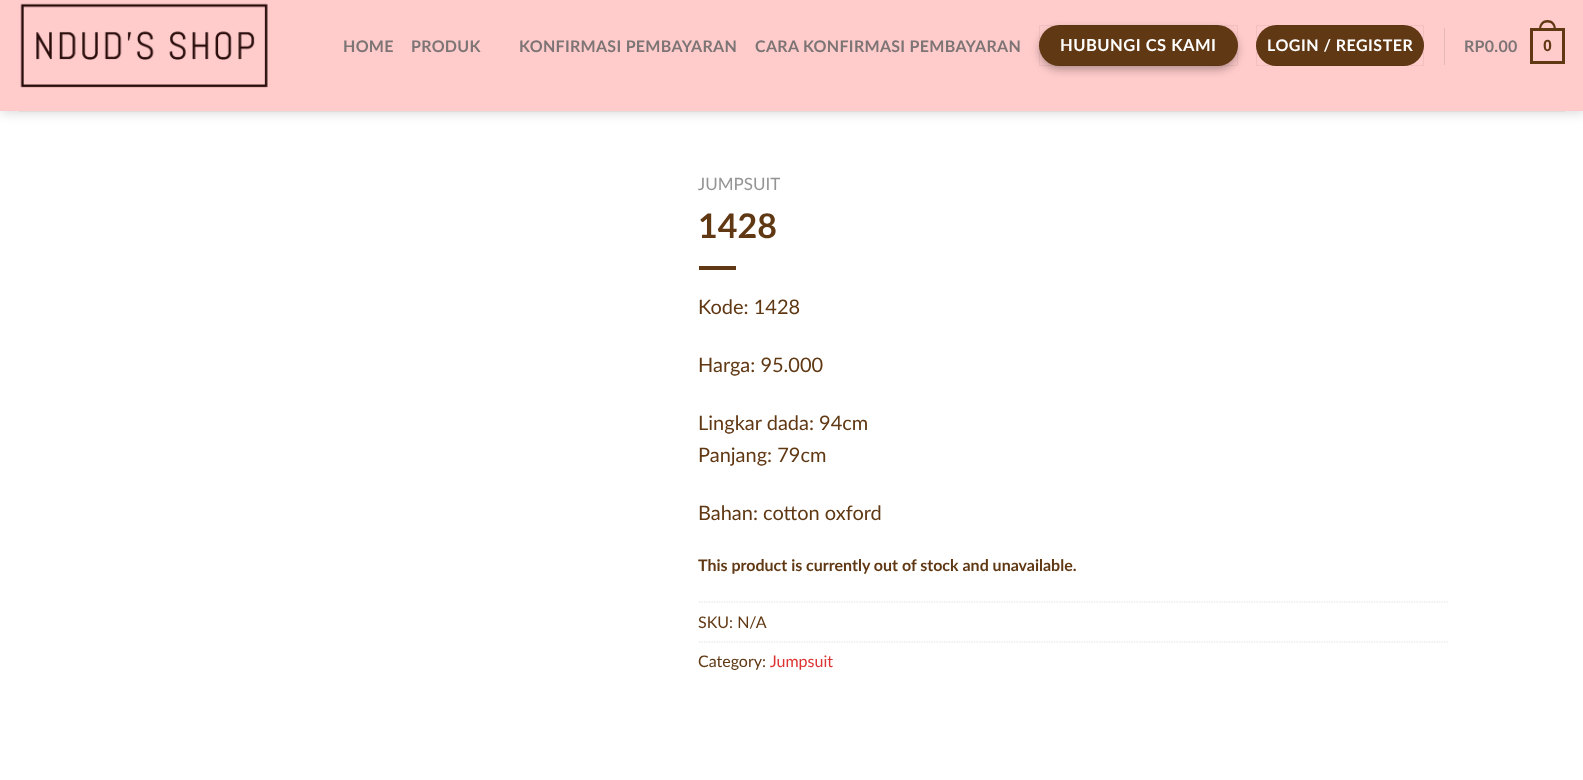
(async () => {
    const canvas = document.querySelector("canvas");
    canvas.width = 1583;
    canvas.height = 780;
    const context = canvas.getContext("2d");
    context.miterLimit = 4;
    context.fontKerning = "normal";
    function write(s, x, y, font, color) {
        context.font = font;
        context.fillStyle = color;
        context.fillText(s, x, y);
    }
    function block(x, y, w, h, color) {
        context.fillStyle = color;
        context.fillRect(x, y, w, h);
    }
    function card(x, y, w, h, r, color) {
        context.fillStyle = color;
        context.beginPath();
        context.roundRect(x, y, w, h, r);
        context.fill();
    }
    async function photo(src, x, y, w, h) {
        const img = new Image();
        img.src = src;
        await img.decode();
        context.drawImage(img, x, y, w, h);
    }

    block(0, 0, 1583, 780, "rgb(255, 255, 255)");
    context.fillStyle = "rgba(0, 0, 0, 0.15)";
    context.filter = "blur(6px)";
    context.beginPath();
    context.rect(1, -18, 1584, 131);
    context.fill();
    context.filter = "none";
    block(0, 0, 1583, 111, "rgb(255, 203, 203)");
    await photo("media/1.png", 20, 3, 248, 85);
    context.letterSpacing = "0.3px";
    write("HOME", 343, 52, "bold 16px Lato", "rgb(125, 117, 117)");
    write("PRODUK", 411, 52, "bold 16px Lato", "rgb(125, 117, 117)");
    write("KONFIRMASI PEMBAYARAN", 519, 52, "bold 16px Lato", "rgb(125, 117, 117)");
    write("CARA KONFIRMASI PEMBAYARAN", 755, 52, "bold 16px Lato", "rgb(125, 117, 117)");
    context.fillStyle = "rgba(0, 0, 0, 0.23)";
    context.filter = "blur(4px)";
    context.beginPath();
    context.roundRect(1039, 29, 199, 41, 20.5);
    context.fill();
    context.filter = "none";
    context.fillStyle = "rgba(0, 0, 0, 0.16)";
    context.filter = "blur(4px)";
    context.beginPath();
    context.roundRect(1044, 34, 189, 31, 15.5);
    context.fill();
    context.filter = "none";
    card(1039, 25, 199, 41, 20.5, "rgb(96, 56, 19)");
    context.strokeStyle = "rgba(0, 0, 0, 0.05)";
    context.strokeRect(1039.5, 25.5, 198, 40);
    context.letterSpacing = "0.5px";
    write("HUBUNGI CS KAMI", 1060, 51, "bold 16.5px Lato", "rgb(255, 255, 255)");
    card(1256, 25, 168, 41, 20.5, "rgb(96, 56, 19)");
    context.strokeRect(1256.5, 25.5, 167, 40);
    write("LOGIN / REGISTER", 1267, 51, "bold 16px Lato", "rgb(255, 255, 255)");
    block(1444, 28, 1, 37, "rgb(230, 183, 183)");
    context.letterSpacing = "0.3px";
    write("RP0.00", 1464, 52, "bold 16px Lato", "rgb(125, 117, 117)");
    context.strokeStyle = "rgb(96, 56, 19)";
    context.lineWidth = 3;
    context.strokeRect(1531.5, 29.5, 32, 33);
    context.fillStyle = "rgb(96, 56, 19)";
    context.beginPath();
    context.moveTo(1547.5, 20);
    context.bezierCurveTo(1553.5, 20, 1556, 24.5, 1556, 30);
    context.lineTo(1539, 30);
    context.bezierCurveTo(1539, 24.5, 1541.5, 20, 1547.5, 20);
    context.closePath();
    context.moveTo(1547.5, 22.5);
    context.bezierCurveTo(1552, 22.5, 1554, 26, 1554, 30);
    context.lineTo(1541, 30);
    context.bezierCurveTo(1541, 26, 1543, 22.5, 1547.5, 22.5);
    context.closePath();
    context.fill("evenodd");
    write("0", 1543, 51, "bold 16px Liberation Sans", "rgb(96, 56, 19)");
    block(19, 111, 1546, 1, "rgb(224, 220, 216)");
    context.letterSpacing = "0px";
    write("JUMPSUIT", 698, 190, "17px Lato", "rgb(148, 148, 148)");
    write("1428", 698, 238, "bold 34px Lato", "rgb(96, 56, 19)");
    block(699, 266, 37, 4, "rgb(96, 56, 19)");
    write("Kode: 1428", 698, 314, "20px Lato", "rgb(96, 56, 19)");
    write("Harga: 95.000", 698, 372, "20px Lato", "rgb(96, 56, 19)");
    write("Lingkar dada: 94cm", 698, 430, "20px Lato", "rgb(96, 56, 19)");
    write("Panjang: 79cm", 698, 462, "20px Lato", "rgb(96, 56, 19)");
    write("Bahan: cotton oxford", 698, 520, "20px Lato", "rgb(96, 56, 19)");
    write("This product is currently out of stock and unavailable.", 698, 571, "bold 16px Lato", "rgb(96, 56, 19)");
    context.beginPath();
    context.moveTo(699, 602);
    context.lineTo(1449, 602);
    context.strokeStyle = "rgb(221, 221, 221)";
    context.lineWidth = 1.2;
    context.setLineDash([1.25, 1.25]);
    context.stroke();
    write("SKU: N/A", 698, 628, "16px Lato", "rgb(96, 56, 19)");
    context.beginPath();
    context.moveTo(699, 642);
    context.lineTo(1449, 642);
    context.stroke();
    write("Category:", 698, 667, "16px Lato", "rgb(96, 56, 19)");
    write("Jumpsuit", 770, 667, "16px Lato", "rgb(221, 51, 51)");
})();
